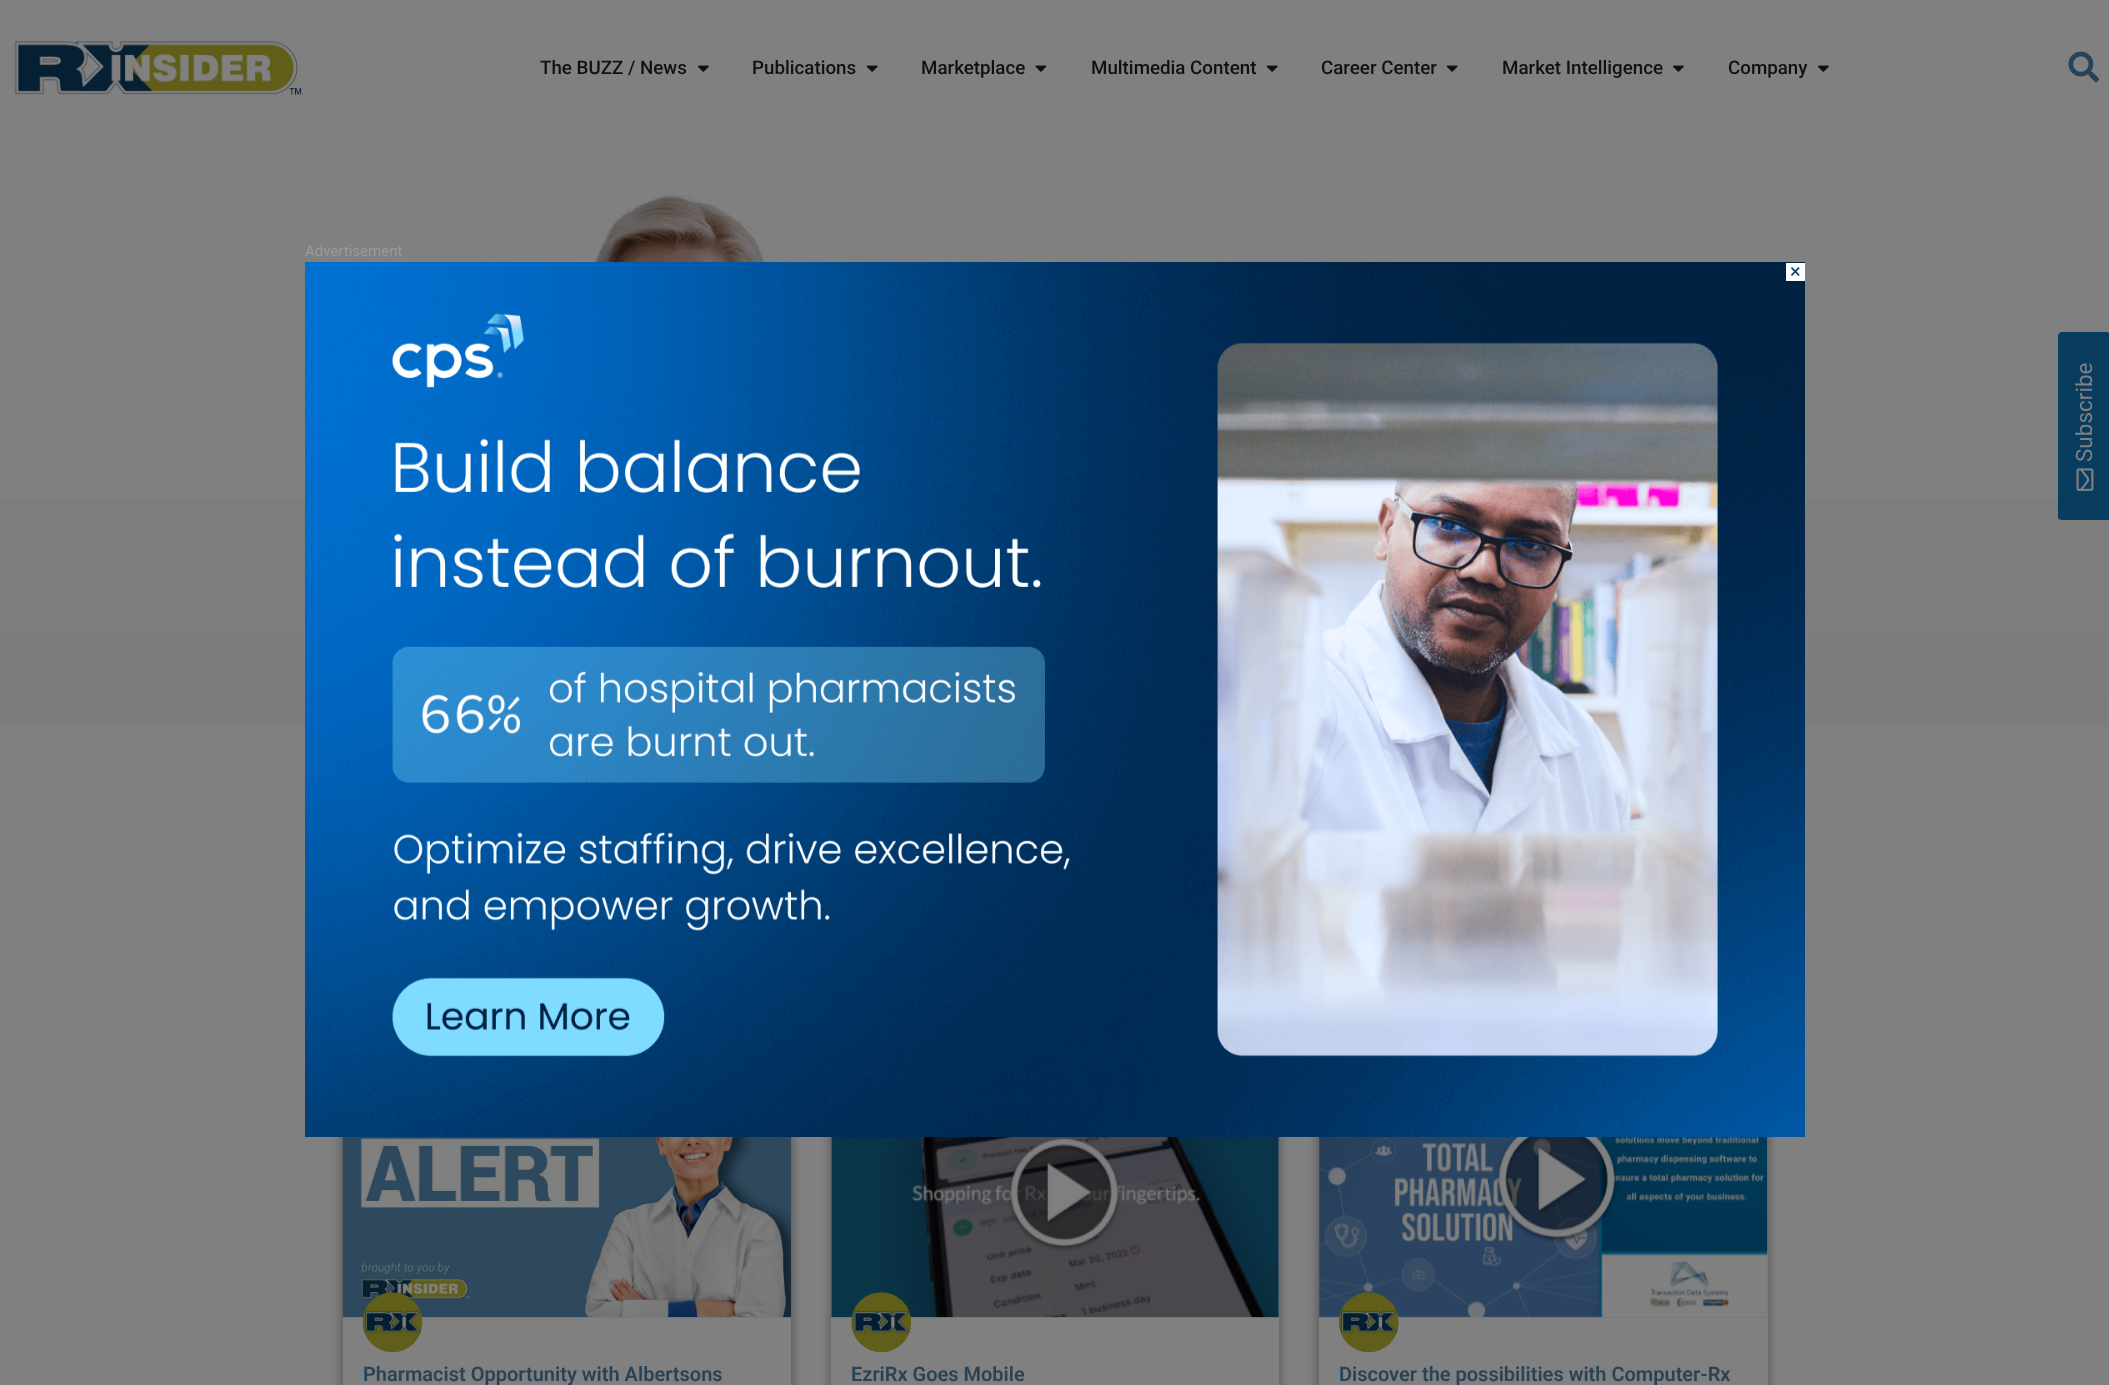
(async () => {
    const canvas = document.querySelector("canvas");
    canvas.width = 2109;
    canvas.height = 1385;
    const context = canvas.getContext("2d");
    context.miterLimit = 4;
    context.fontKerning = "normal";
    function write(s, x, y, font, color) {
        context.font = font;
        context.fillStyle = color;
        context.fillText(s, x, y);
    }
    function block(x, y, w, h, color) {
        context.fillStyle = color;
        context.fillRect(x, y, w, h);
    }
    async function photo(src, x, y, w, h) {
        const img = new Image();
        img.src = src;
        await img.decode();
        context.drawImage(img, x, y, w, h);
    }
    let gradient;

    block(0, 0, 2109, 1385, "rgb(128, 128, 128)");
    await photo("media/1.png", 14, 41, 288, 55);
    write("The BUZZ / News", 540, 74, "500 18.75px Roboto", "rgb(16, 17, 18)");
    await photo("media/2.png", 697, 65, 12, 7);
    write("Publications", 752, 74, "500 18.75px Roboto", "rgb(16, 17, 18)");
    await photo("media/3.png", 866, 65, 12, 7);
    write("Marketplace", 921, 74, "500 18.75px Roboto", "rgb(16, 17, 18)");
    await photo("media/4.png", 1035, 65, 12, 7);
    write("Multimedia Content", 1091, 74, "500 18.75px Roboto", "rgb(16, 17, 18)");
    await photo("media/3.png", 1266, 65, 12, 7);
    write("Career Center", 1321, 74, "500 18.75px Roboto", "rgb(16, 17, 18)");
    await photo("media/3.png", 1446, 65, 12, 7);
    write("Market Intelligence", 1502, 74, "500 18.75px Roboto", "rgb(16, 17, 18)");
    await photo("media/2.png", 1672, 65, 12, 7);
    write("Company", 1728, 74, "500 18.75px Roboto", "rgb(16, 17, 18)");
    await photo("media/2.png", 1817, 65, 12, 7);
    await photo("media/5.png", 2068, 51, 32, 32);
    write("Advertisement", 305, 256, "15px Roboto", "rgb(154, 154, 154)");
    gradient = context.createLinearGradient(1055, 122, 1055, 726);
    gradient.addColorStop(0, "rgb(128, 128, 128)");
    gradient.addColorStop(1, "rgb(124, 124, 124)");
    context.fillStyle = gradient;
    context.fillRect(0, 500, 2109, 226);
    context.save();
    context.beginPath();
    context.moveTo(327, 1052);
    context.lineTo(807, 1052);
    context.lineTo(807, 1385);
    context.lineTo(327, 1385);
    context.closePath();
    context.moveTo(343, 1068);
    context.lineTo(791, 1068);
    context.lineTo(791, 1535);
    context.lineTo(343, 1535);
    context.closePath();
    context.clip("evenodd");
    context.fillStyle = "rgba(0, 0, 0, 0.25)";
    context.filter = "blur(4px)";
    context.beginPath();
    context.rect(340, 1065, 454, 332);
    context.fill();
    context.filter = "none";
    context.restore();
    context.fillStyle = "rgba(0, 0, 0, 0.25)";
    context.filter = "blur(4px)";
    context.beginPath();
    context.rect(829, 1065, 452, 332);
    context.fill();
    context.filter = "none";
    context.filter = "blur(4px)";
    context.beginPath();
    context.rect(1316, 1065, 454, 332);
    context.fill();
    context.filter = "none";
    await photo("media/6.png", 305, 262, 1500, 875);
    block(1786, 263, 19, 18, "rgb(255, 255, 255)");
    write("×", 1790, 278, "20px Roboto", "rgb(10, 62, 100)");
    context.fillStyle = "rgb(8, 61, 96)";
    context.beginPath();
    context.moveTo(2058, 517);
    context.lineTo(2058, 336);
    context.bezierCurveTo(2058, 334, 2060, 332, 2062, 332);
    context.lineTo(2107, 332);
    context.bezierCurveTo(2109, 332, 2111, 334, 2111, 336);
    context.lineTo(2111, 517);
    context.bezierCurveTo(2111, 519, 2109, 520, 2107, 520);
    context.lineTo(2062, 520);
    context.bezierCurveTo(2060, 520, 2058, 519, 2058, 517);
    context.closePath();
    context.fill();
    context.font = "22.5px Roboto";
    context.fillStyle = "rgb(128, 128, 128)";
    context.save();
    context.translate(2092, 462);
    context.rotate(-90 * Math.PI / 180);
    context.fillText("Subscribe", 0, 0);
    context.restore();
    await photo("media/7.png", 2076, 468, 18, 23);
    await photo("media/8.png", 591, 194, 178, 68);
    block(343, 1317, 448, 1, "rgb(120, 120, 120)");
    await photo("media/9.png", 342, 1137, 450, 181);
    await photo("media/10.png", 362, 1292, 61, 61);
    write("Pharmacist Opportunity with Albertsons", 363, 1381, "600 20px Roboto", "rgb(41, 66, 86)");
    block(831, 1318, 448, 67, "rgb(128, 128, 128)");
    block(831, 1137, 448, 181, "rgb(120, 120, 120)");
    await photo("media/11.png", 831, 1137, 448, 181);
    await photo("media/12.png", 851, 1292, 61, 61);
    write("EzriRx Goes Mobile", 851, 1381, "600 20px Roboto", "rgb(41, 66, 86)");
    block(1319, 1318, 449, 67, "rgb(128, 128, 128)");
    block(1319, 1137, 449, 181, "rgb(120, 120, 120)");
    await photo("media/13.png", 1318, 1137, 450, 181);
    await photo("media/14.png", 1338, 1292, 61, 61);
    write("Discover the possibilities with Computer-Rx", 1339, 1381, "600 20px Roboto", "rgb(41, 66, 86)");
})();
